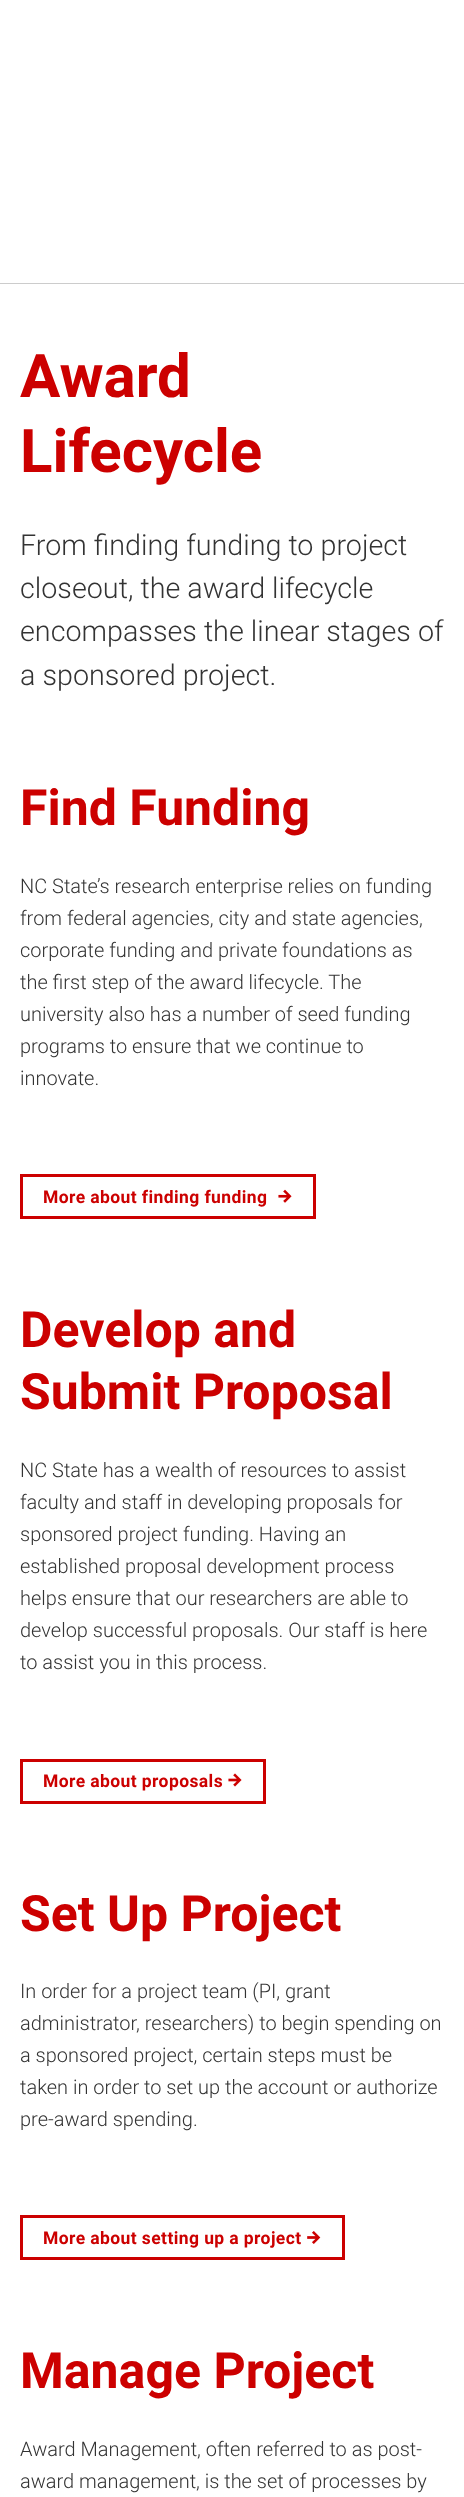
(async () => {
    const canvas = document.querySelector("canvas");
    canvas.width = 464;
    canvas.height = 2497;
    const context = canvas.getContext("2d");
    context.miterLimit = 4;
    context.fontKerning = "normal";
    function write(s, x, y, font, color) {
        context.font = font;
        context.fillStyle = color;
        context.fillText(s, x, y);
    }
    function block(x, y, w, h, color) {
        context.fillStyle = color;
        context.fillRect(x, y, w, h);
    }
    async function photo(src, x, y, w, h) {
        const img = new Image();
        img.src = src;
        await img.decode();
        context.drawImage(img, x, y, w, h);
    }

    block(0, 0, 464, 2497, "rgb(255, 255, 255)");
    block(0, 283, 464, 1, "rgb(204, 204, 204)");
    write("Award", 20, 397, "bold 60px Roboto", "rgb(204, 0, 0)");
    write("Lifecycle", 20, 472, "bold 60px Roboto", "rgb(204, 0, 0)");
    write("From finding funding to project", 20, 555, "300 28.75px Roboto", "rgb(51, 51, 51)");
    write("closeout, the award lifecycle", 20, 598, "300 28.75px Roboto", "rgb(51, 51, 51)");
    write("encompasses the linear stages of", 20, 641, "300 28.75px Roboto", "rgb(51, 51, 51)");
    write("a sponsored project.", 20, 685, "300 28.75px Roboto", "rgb(51, 51, 51)");
    write("Find Funding", 20, 825, "bold 50px Roboto", "rgb(204, 0, 0)");
    write("NC State’s research enterprise relies on funding", 20, 893, "300 20px Roboto", "rgb(51, 51, 51)");
    write("from federal agencies, city and state agencies,", 20, 925, "300 20px Roboto", "rgb(51, 51, 51)");
    write("corporate funding and private foundations as", 20, 957, "300 20px Roboto", "rgb(51, 51, 51)");
    write("the first step of the award lifecycle. The", 20, 989, "300 20px Roboto", "rgb(51, 51, 51)");
    write("university also has a number of seed funding", 20, 1021, "300 20px Roboto", "rgb(51, 51, 51)");
    write("programs to ensure that we continue to", 20, 1053, "300 20px Roboto", "rgb(51, 51, 51)");
    write("innovate.", 20, 1085, "300 20px Roboto", "rgb(51, 51, 51)");
    context.strokeStyle = "rgb(204, 0, 0)";
    context.lineWidth = 3;
    context.strokeRect(21.5, 1175.5, 293, 42);
    context.letterSpacing = "0.4px";
    write("More about finding funding", 43, 1203, "bold 17.5px Roboto", "rgb(204, 0, 0)");
    await photo("media/1.png", 278, 1189, 14, 14);
    context.letterSpacing = "0px";
    write("Develop and", 20, 1347, "bold 50px Roboto", "rgb(204, 0, 0)");
    write("Submit Proposal", 20, 1409, "bold 50px Roboto", "rgb(204, 0, 0)");
    write("NC State has a wealth of resources to assist", 20, 1477, "300 20px Roboto", "rgb(51, 51, 51)");
    write("faculty and staff in developing proposals for", 20, 1509, "300 20px Roboto", "rgb(51, 51, 51)");
    write("sponsored project funding. Having an", 20, 1541, "300 20px Roboto", "rgb(51, 51, 51)");
    write("established proposal development process", 20, 1573, "300 20px Roboto", "rgb(51, 51, 51)");
    write("helps ensure that our researchers are able to", 20, 1605, "300 20px Roboto", "rgb(51, 51, 51)");
    write("develop successful proposals. Our staff is here", 20, 1637, "300 20px Roboto", "rgb(51, 51, 51)");
    write("to assist you in this process.", 20, 1669, "300 20px Roboto", "rgb(51, 51, 51)");
    context.strokeRect(21.5, 1760.5, 243, 42);
    context.letterSpacing = "0.4px";
    write("More about proposals", 43, 1787, "bold 17.5px Roboto", "rgb(204, 0, 0)");
    await photo("media/2.png", 228, 1773, 14, 14);
    context.letterSpacing = "0px";
    write("Set Up Project", 20, 1931, "bold 50px Roboto", "rgb(204, 0, 0)");
    write("In order for a project team (PI, grant", 20, 1998, "300 20px Roboto", "rgb(51, 51, 51)");
    write("administrator, researchers) to begin spending on", 20, 2030, "300 20px Roboto", "rgb(51, 51, 51)");
    write("a sponsored project, certain steps must be", 20, 2062, "300 20px Roboto", "rgb(51, 51, 51)");
    write("taken in order to set up the account or authorize", 20, 2094, "300 20px Roboto", "rgb(51, 51, 51)");
    write("pre-award spending.", 20, 2126, "300 20px Roboto", "rgb(51, 51, 51)");
    context.strokeRect(21.5, 2216.5, 322, 42);
    context.letterSpacing = "0.4px";
    write("More about setting up a project", 43, 2244, "bold 17.5px Roboto", "rgb(204, 0, 0)");
    await photo("media/3.png", 307, 2231, 14, 13);
    context.letterSpacing = "0px";
    write("Manage Project", 20, 2388, "bold 50px Roboto", "rgb(204, 0, 0)");
    write("Award Management, often referred to as post-", 20, 2456, "300 20px Roboto", "rgb(51, 51, 51)");
    write("award management, is the set of processes by", 20, 2488, "300 20px Roboto", "rgb(51, 51, 51)");
})();
